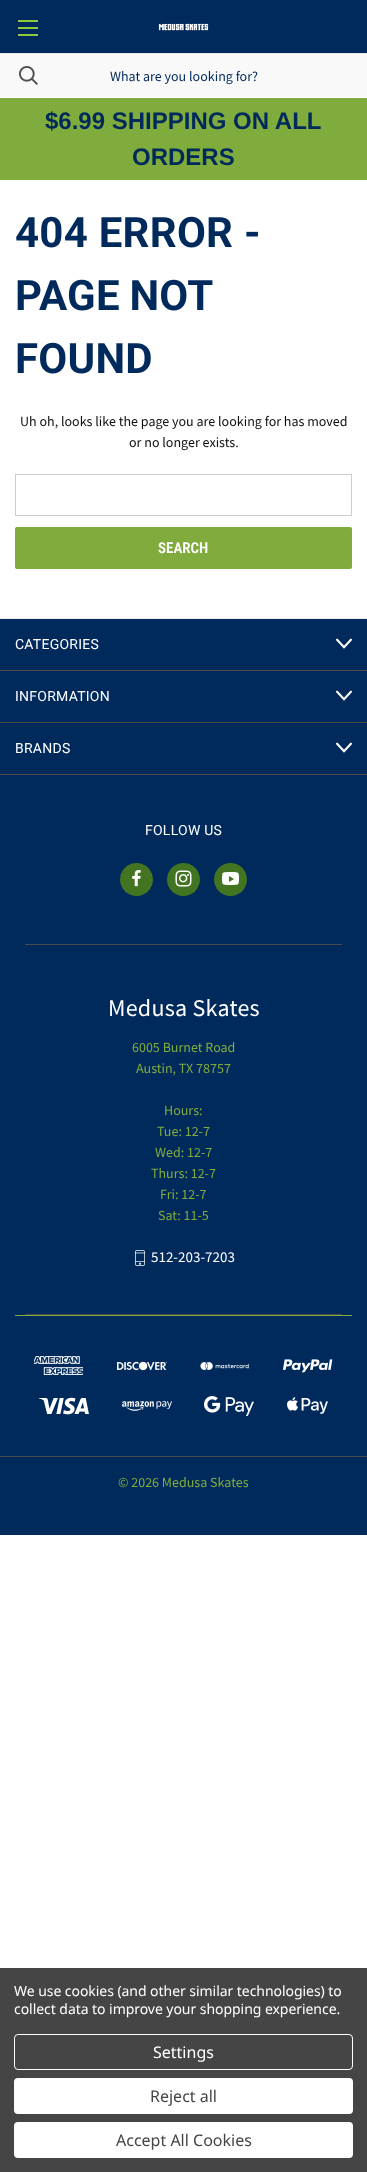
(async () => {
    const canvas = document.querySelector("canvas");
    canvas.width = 367;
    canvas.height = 2172;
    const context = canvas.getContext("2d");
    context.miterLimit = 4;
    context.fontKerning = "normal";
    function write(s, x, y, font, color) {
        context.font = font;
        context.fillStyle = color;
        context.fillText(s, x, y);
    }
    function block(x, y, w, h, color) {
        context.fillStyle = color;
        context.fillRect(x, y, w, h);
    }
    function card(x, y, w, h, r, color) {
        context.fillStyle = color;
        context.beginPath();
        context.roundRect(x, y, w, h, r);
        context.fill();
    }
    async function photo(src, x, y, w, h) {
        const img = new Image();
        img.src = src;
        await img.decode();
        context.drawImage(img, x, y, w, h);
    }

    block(0, 0, 367, 2172, "rgb(255, 255, 255)");
    block(0, 0, 367, 53, "rgb(1, 42, 92)");
    block(18, 27, 20, 2, "rgb(141, 199, 64)");
    block(18, 20, 20, 2, "rgb(141, 199, 64)");
    block(18, 34, 20, 2, "rgb(141, 199, 64)");
    await photo("media/1.png", 158, 23, 51, 8);
    block(0, 54, 367, 43, "rgb(249, 249, 249)");
    await photo("media/2.png", 19, 66, 19, 19);
    block(0, 53, 367, 1, "rgb(235, 235, 235)");
    write("What are you looking for?", 110, 81, "14px Source Sans Pro", "rgb(1, 42, 92)");
    block(0, 98, 367, 82, "rgb(128, 171, 61)");
    write("$6.99 SHIPPING ON ALL", 45, 129, "bold 24px Liberation Sans", "rgb(1, 42, 92)");
    write("ORDERS", 132, 165, "bold 24px Liberation Sans", "rgb(1, 42, 92)");
    context.letterSpacing = "0.25px";
    write("404 ERROR -", 15, 247, "bold 42px Roboto", "rgb(1, 42, 92)");
    context.wordSpacing = "-1px";
    write("PAGE NOT", 15, 310, "bold 42px Roboto", "rgb(1, 42, 92)");
    context.wordSpacing = "0px";
    write("FOUND", 15, 373, "bold 42px Roboto", "rgb(1, 42, 92)");
    context.letterSpacing = "0px";
    write("Uh oh, looks like the page you are looking for has moved", 20, 426, "14px Source Sans Pro", "rgb(15, 15, 15)");
    write("or no longer exists.", 129, 447, "14px Source Sans Pro", "rgb(15, 15, 15)");
    context.strokeStyle = "rgb(204, 204, 204)";
    context.strokeRect(15.5, 474.5, 336, 41);
    card(15, 527, 337, 42, 2, "rgb(128, 171, 61)");
    write("SEARCH", 158, 553, "600 15px Roboto Condensed", "rgb(255, 255, 255)");
    block(0, 619, 367, 916, "rgb(1, 42, 92)");
    block(0, 618, 367, 1, "rgb(235, 235, 235)");
    block(0, 670, 367, 1, "rgb(74, 74, 74)");
    context.letterSpacing = "0.25px";
    write("CATEGORIES", 15, 649, "14px Roboto", "rgb(255, 255, 255)");
    await photo("media/3.png", 336, 638, 16, 11);
    block(0, 722, 367, 1, "rgb(74, 74, 74)");
    write("INFORMATION", 15, 701, "14px Roboto", "rgb(255, 255, 255)");
    await photo("media/3.png", 336, 690, 16, 11);
    block(0, 774, 367, 1, "rgb(74, 74, 74)");
    write("BRANDS", 15, 753, "14px Roboto", "rgb(255, 255, 255)");
    await photo("media/3.png", 336, 742, 16, 11);
    block(25, 944, 317, 1, "rgb(74, 74, 74)");
    write("FOLLOW US", 145, 835, "14px Roboto", "rgb(255, 255, 255)");
    context.fillStyle = "rgb(66, 116, 33)";
    context.beginPath();
    context.arc(136.5, 879.5, 16.5, 0, Math.PI * 2);
    context.fill();
    await photo("media/4.png", 132, 870, 9, 17);
    context.beginPath();
    context.arc(183.5, 879.5, 16.5, 0, Math.PI * 2);
    context.fill();
    await photo("media/5.png", 175, 870, 17, 17);
    context.beginPath();
    context.arc(230.5, 879.5, 16.5, 0, Math.PI * 2);
    context.fill();
    await photo("media/6.png", 222, 872, 17, 13);
    block(25, 1314, 317, 1, "rgb(74, 74, 74)");
    write("Medusa Skates", 108, 1016, "24px Source Sans Pro", "rgb(255, 255, 255)");
    context.letterSpacing = "0px";
    write("6005 Burnet Road", 132, 1052, "14px Source Sans Pro", "rgb(128, 171, 61)");
    write("Austin, TX 78757", 136, 1073, "14px Source Sans Pro", "rgb(128, 171, 61)");
    write("Hours:", 164, 1115, "14px Source Sans Pro", "rgb(128, 171, 61)");
    write("Tue: 12-7", 157, 1136, "14px Source Sans Pro", "rgb(128, 171, 61)");
    write("Wed: 12-7", 155, 1157, "14px Source Sans Pro", "rgb(128, 171, 61)");
    write("Thurs: 12-7", 151, 1178, "14px Source Sans Pro", "rgb(128, 171, 61)");
    write("Fri: 12-7", 160, 1199, "14px Source Sans Pro", "rgb(128, 171, 61)");
    write("Sat: 11-5", 158, 1220, "14px Source Sans Pro", "rgb(128, 171, 61)");
    await photo("media/7.png", 135, 1250, 10, 16);
    write("512-203-7203", 151, 1262, "15px Source Sans Pro", "rgb(255, 255, 255)");
    block(15, 1315, 337, 1, "rgb(128, 171, 61)");
    block(0, 1456, 367, 1, "rgb(74, 74, 74)");
    await photo("media/8.png", 34, 1356, 50, 19);
    await photo("media/9.png", 117, 1361, 50, 10);
    await photo("media/10.png", 200, 1362, 50, 8);
    await photo("media/11.png", 283, 1359, 50, 14);
    await photo("media/12.png", 39, 1397, 50, 18);
    await photo("media/13.png", 122, 1401, 50, 10);
    await photo("media/14.png", 204, 1396, 50, 20);
    await photo("media/15.png", 287, 1397, 41, 17);
    write("© 2026 Medusa Skates", 118, 1487, "14px Source Sans Pro", "rgb(128, 171, 61)");
    block(0, 1968, 367, 204, "rgb(69, 69, 69)");
    context.letterSpacing = "-0.05px";
    write("We use cookies (and other similar technologies) to", 14, 1996, "14px Noto Sans", "rgb(255, 255, 255)");
    write("collect data to improve your shopping experience.", 14, 2014, "14px Noto Sans", "rgb(255, 255, 255)");
    context.beginPath();
    context.roundRect(14.5, 2034.5, 338, 35, 3.5);
    context.strokeStyle = "rgb(255, 255, 255)";
    context.stroke();
    context.letterSpacing = "0px";
    write("Settings", 153, 2058, "16px Noto Sans", "rgb(255, 255, 255)");
    card(14, 2078, 339, 36, 4, "rgb(255, 255, 255)");
    write("Reject all", 150, 2102, "16px Noto Sans", "rgb(69, 69, 69)");
    card(14, 2122, 339, 36, 4, "rgb(255, 255, 255)");
    write("Accept All Cookies", 116, 2146, "16px Noto Sans", "rgb(69, 69, 69)");
})();
